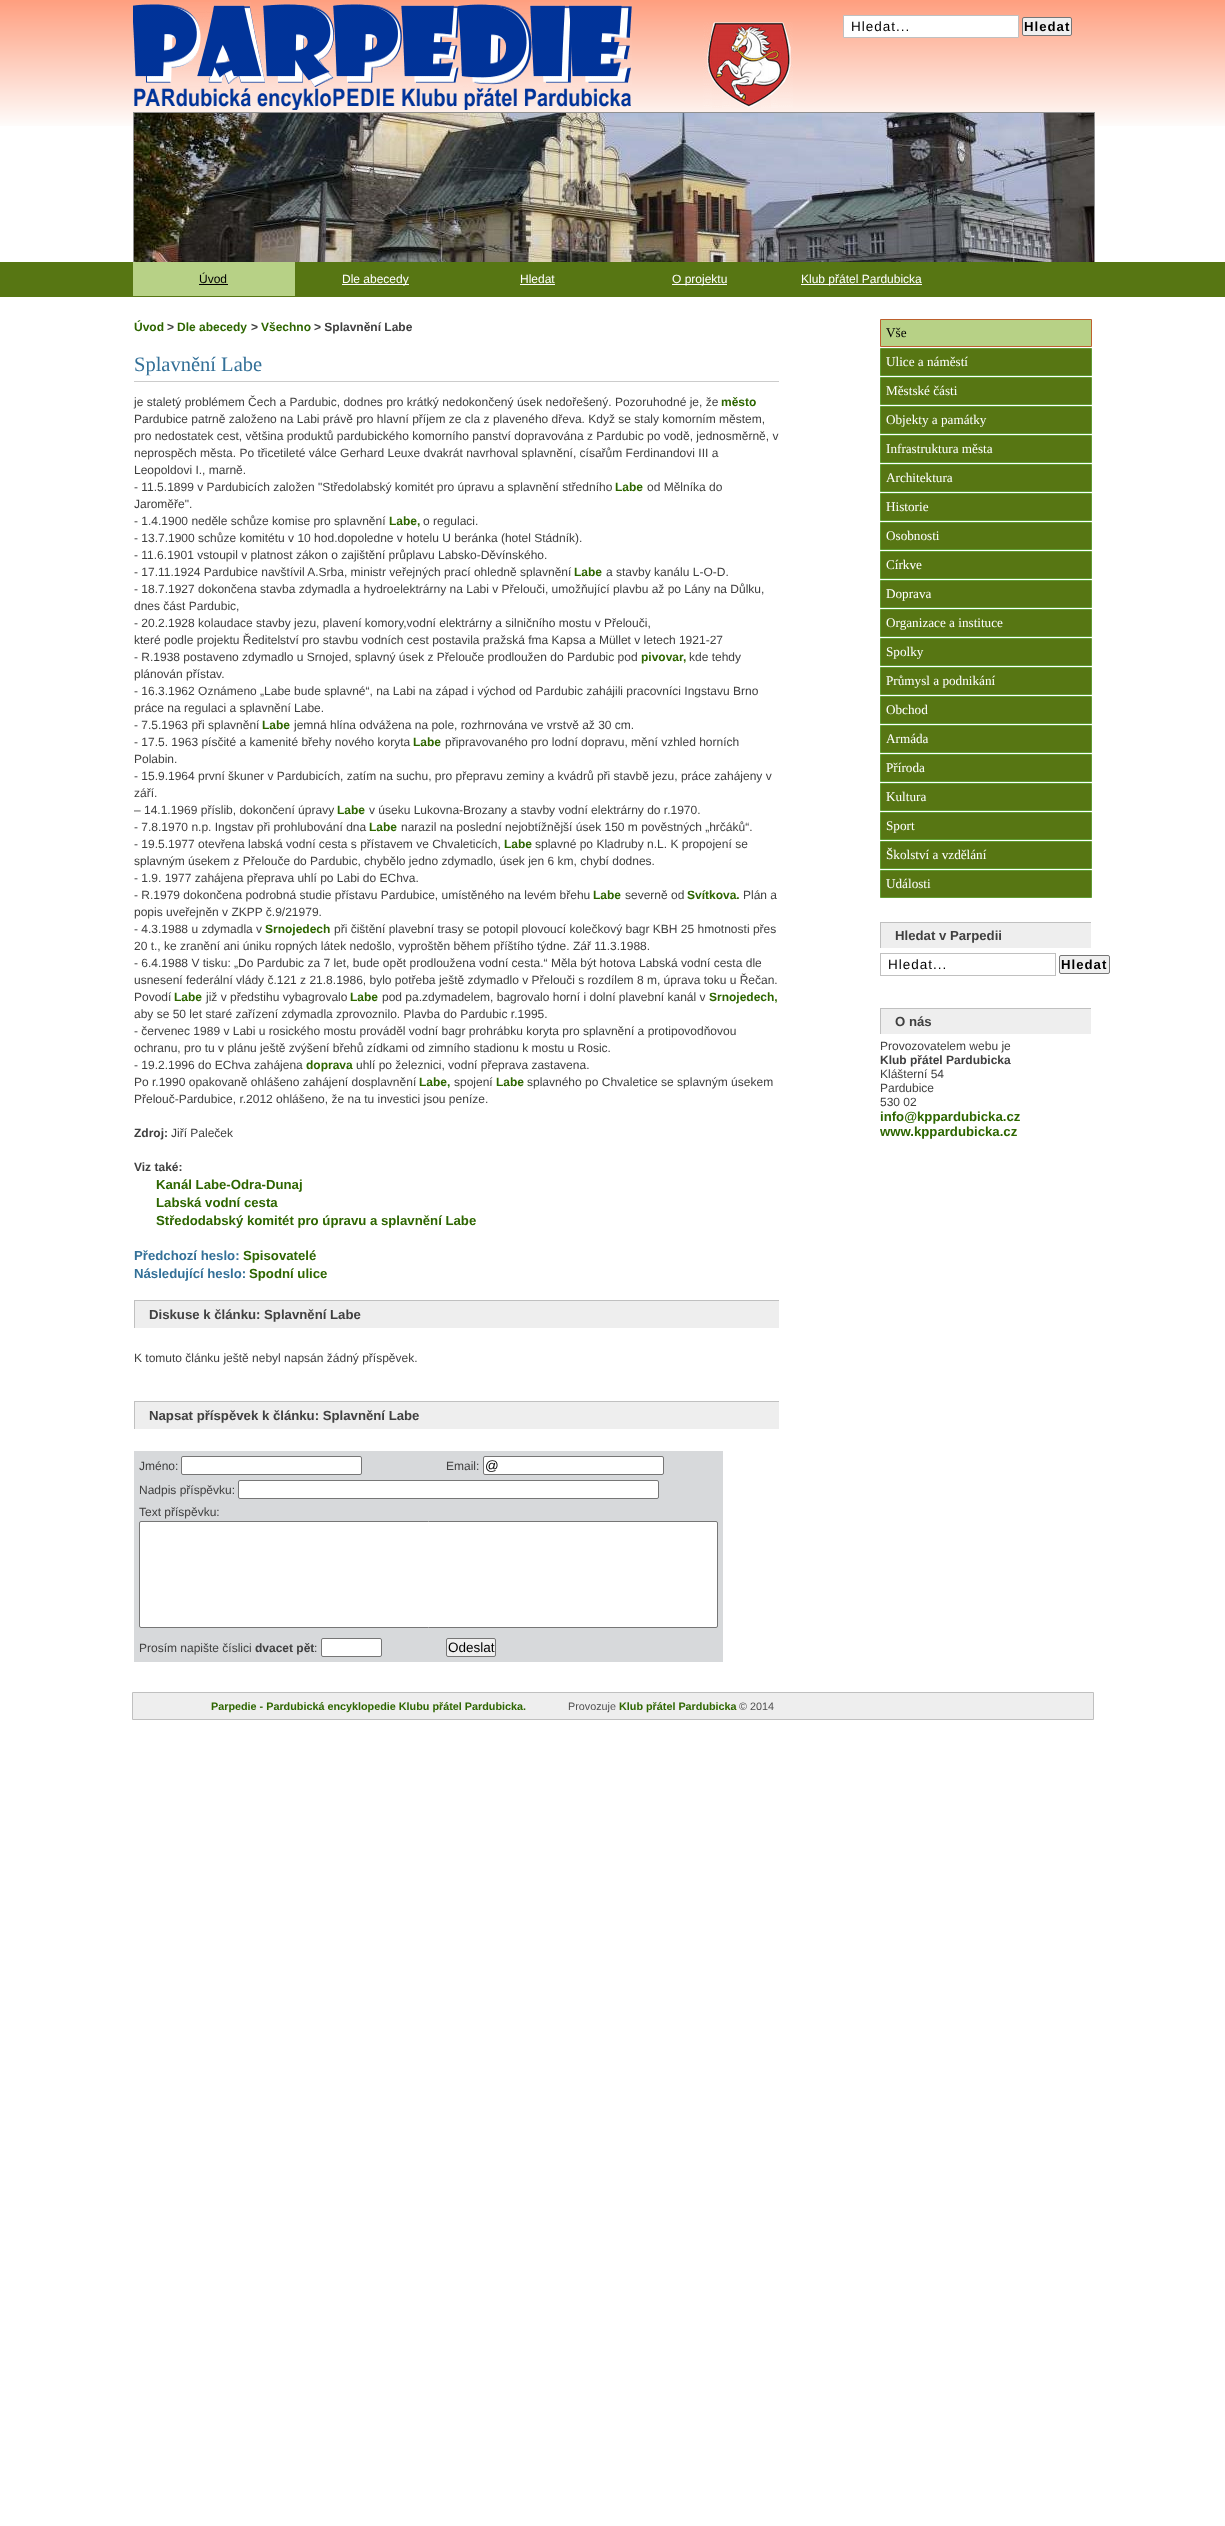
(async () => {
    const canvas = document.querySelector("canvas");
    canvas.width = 1225;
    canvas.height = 2526;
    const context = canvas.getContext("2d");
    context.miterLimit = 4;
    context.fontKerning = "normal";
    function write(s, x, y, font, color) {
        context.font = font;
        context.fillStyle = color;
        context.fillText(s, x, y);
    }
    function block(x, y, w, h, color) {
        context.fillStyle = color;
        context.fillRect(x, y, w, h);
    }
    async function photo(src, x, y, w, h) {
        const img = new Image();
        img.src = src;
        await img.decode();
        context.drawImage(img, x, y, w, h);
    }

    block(0, 0, 1225, 2526, "rgb(255, 255, 255)");
    await photo("media/1.png", 0, 0, 1225, 126);
    await photo("media/2.png", 133, 2, 499, 108);
    await photo("media/3.png", 703, 22, 90, 86);
    context.beginPath();
    context.rect(843.5, 15.5, 175, 22);
    context.fill();
    context.strokeStyle = "rgb(192, 192, 192)";
    context.stroke();
    context.letterSpacing = "1px";
    write("Hledat...", 851, 31, "13.5px Liberation Sans", "rgb(0, 0, 0)");
    context.fillStyle = "rgb(239, 239, 239)";
    context.beginPath();
    context.roundRect(1022.5, 17.5, 49, 18, 1.5);
    context.fill();
    context.strokeStyle = "rgb(118, 118, 118)";
    context.stroke();
    write("Hledat", 1024, 31, "bold 13.2px Liberation Sans", "rgb(0, 0, 0)");
    block(0, 262, 1225, 35, "rgb(87, 118, 19)");
    context.save();
    context.beginPath();
    context.rect(133, 112, 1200, 150);
    context.clip();
    context.strokeStyle = "rgb(144, 144, 144)";
    context.strokeRect(133.5, 112.5, 961, 151);
    context.restore();
    await photo("media/4.png", 134, 113, 960, 149);
    block(133, 262, 162, 34, "rgb(183, 209, 134)");
    context.letterSpacing = "0px";
    write("Úvod", 199, 283, "12px Liberation Sans", "rgb(0, 0, 0)");
    block(199, 284, 29, 1, "rgb(0, 0, 0)");
    block(342, 284, 67, 1, "rgb(255, 255, 255)");
    write("Dle abecedy", 342, 283, "12px Liberation Sans", "rgb(255, 255, 255)");
    write("Hledat", 520, 283, "12px Liberation Sans", "rgb(255, 255, 255)");
    block(520, 284, 35, 1, "rgb(255, 255, 255)");
    block(672, 284, 55, 1, "rgb(255, 255, 255)");
    write("O projektu", 672, 283, "12px Liberation Sans", "rgb(255, 255, 255)");
    block(801, 284, 121, 1, "rgb(255, 255, 255)");
    write("Klub přátel Pardubicka", 801, 283, "12px Liberation Sans", "rgb(255, 255, 255)");
    write("Úvod", 134, 331, "bold 12px Liberation Sans", "rgb(46, 102, 0)");
    write(">", 167, 331, "bold 12px Liberation Sans", "rgb(64, 64, 64)");
    write("Dle abecedy", 177, 331, "bold 12px Liberation Sans", "rgb(46, 102, 0)");
    write(">", 251, 331, "bold 12px Liberation Sans", "rgb(64, 64, 64)");
    write("Všechno", 261, 331, "bold 12px Liberation Sans", "rgb(46, 102, 0)");
    write("> Splavnění Labe", 314, 331, "bold 12px Liberation Sans", "rgb(64, 64, 64)");
    block(134, 381, 645, 1, "rgb(204, 204, 204)");
    write("Splavnění Labe", 134, 371, "20.5px Liberation Serif", "rgb(51, 112, 152)");
    write("je staletý problémem Čech a Pardubic, dodnes pro krátký nedokončený úsek nedořešený. Pozoruhodné je, že", 134, 406, "12px Liberation Sans", "rgb(64, 64, 64)");
    write("město", 721, 406, "bold 12px Liberation Sans", "rgb(46, 102, 0)");
    write("Pardubice patrně založeno na Labi právě pro hlavní příjem ze cla z plaveného dřeva. Když se staly komorním městem,", 134, 423, "12px Liberation Sans", "rgb(64, 64, 64)");
    write("pro nedostatek cest, většina produktů pardubického komorního panství dopravována z Pardubic po vodě, jednosměrně, v", 134, 440, "12px Liberation Sans", "rgb(64, 64, 64)");
    write("neprospěch města. Po třicetileté válce Gerhard Leuxe dvakrát navrhoval splavnění, císařům Ferdinandovi III a", 134, 457, "12px Liberation Sans", "rgb(64, 64, 64)");
    write("Leopoldovi I., marně.", 134, 474, "12px Liberation Sans", "rgb(64, 64, 64)");
    write("- 11.5.1899 v Pardubicích založen \"Středolabský komitét pro úpravu a splavnění středního", 134, 491, "12px Liberation Sans", "rgb(64, 64, 64)");
    write("Labe", 615, 491, "bold 12px Liberation Sans", "rgb(46, 102, 0)");
    write("od Mělníka do", 647, 491, "12px Liberation Sans", "rgb(64, 64, 64)");
    write("Jaroměře\".", 134, 508, "12px Liberation Sans", "rgb(64, 64, 64)");
    write("- 1.4.1900 neděle schůze komise pro splavnění", 134, 525, "12px Liberation Sans", "rgb(64, 64, 64)");
    write("Labe,", 389, 525, "bold 12px Liberation Sans", "rgb(46, 102, 0)");
    write("o regulaci.", 423, 525, "12px Liberation Sans", "rgb(64, 64, 64)");
    write("- 13.7.1900 schůze komitétu v 10 hod.dopoledne v hotelu U beránka (hotel Stádník).", 134, 542, "12px Liberation Sans", "rgb(64, 64, 64)");
    write("- 11.6.1901 vstoupil v platnost zákon o zajištění průplavu Labsko-Děvínského.", 134, 559, "12px Liberation Sans", "rgb(64, 64, 64)");
    write("- 17.11.1924 Pardubice navštívil A.Srba, ministr veřejných prací ohledně splavnění", 134, 576, "12px Liberation Sans", "rgb(64, 64, 64)");
    write("Labe", 574, 576, "bold 12px Liberation Sans", "rgb(46, 102, 0)");
    write("a stavby kanálu L-O-D.", 606, 576, "12px Liberation Sans", "rgb(64, 64, 64)");
    write("- 18.7.1927 dokončena stavba zdymadla a hydroelektrárny na Labi v Přelouči, umožňující plavbu až po Lány na Důlku,", 134, 593, "12px Liberation Sans", "rgb(64, 64, 64)");
    write("dnes část Pardubic,", 134, 610, "12px Liberation Sans", "rgb(64, 64, 64)");
    write("- 20.2.1928 kolaudace stavby jezu, plavení komory,vodní elektrárny a silničního mostu v Přelouči,", 134, 627, "12px Liberation Sans", "rgb(64, 64, 64)");
    write("které podle projektu Ředitelství pro stavbu vodních cest postavila pražská fma Kapsa a Müllet v letech 1921-27", 134, 644, "12px Liberation Sans", "rgb(64, 64, 64)");
    write("- R.1938 postaveno zdymadlo u Srnojed, splavný úsek z Přelouče prodloužen do Pardubic pod", 134, 661, "12px Liberation Sans", "rgb(64, 64, 64)");
    write("pivovar,", 641, 661, "bold 12px Liberation Sans", "rgb(46, 102, 0)");
    write("kde tehdy", 689, 661, "12px Liberation Sans", "rgb(64, 64, 64)");
    write("plánován přístav.", 134, 678, "12px Liberation Sans", "rgb(64, 64, 64)");
    write("- 16.3.1962 Oznámeno „Labe bude splavné“, na Labi na západ i východ od Pardubic zahájili pracovníci Ingstavu Brno", 134, 695, "12px Liberation Sans", "rgb(64, 64, 64)");
    write("práce na regulaci a splavnění Labe.", 134, 712, "12px Liberation Sans", "rgb(64, 64, 64)");
    write("- 7.5.1963 při splavnění", 134, 729, "12px Liberation Sans", "rgb(64, 64, 64)");
    write("Labe", 262, 729, "bold 12px Liberation Sans", "rgb(46, 102, 0)");
    write("jemná hlína odvážena na pole, rozhrnována ve vrstvě až 30 cm.", 294, 729, "12px Liberation Sans", "rgb(64, 64, 64)");
    write("- 17.5. 1963 písčité a kamenité břehy nového koryta", 134, 746, "12px Liberation Sans", "rgb(64, 64, 64)");
    write("Labe", 413, 746, "bold 12px Liberation Sans", "rgb(46, 102, 0)");
    write("připravovaného pro lodní dopravu, mění vzhled horních", 445, 746, "12px Liberation Sans", "rgb(64, 64, 64)");
    write("Polabin.", 134, 763, "12px Liberation Sans", "rgb(64, 64, 64)");
    write("- 15.9.1964 první škuner v Pardubicích, zatím na suchu, pro přepravu zeminy a kvádrů při stavbě jezu, práce zahájeny v", 134, 780, "12px Liberation Sans", "rgb(64, 64, 64)");
    write("září.", 134, 797, "12px Liberation Sans", "rgb(64, 64, 64)");
    write("– 14.1.1969 příslib, dokončení úpravy", 134, 814, "12px Liberation Sans", "rgb(64, 64, 64)");
    write("Labe", 337, 814, "bold 12px Liberation Sans", "rgb(46, 102, 0)");
    write("v úseku Lukovna-Brozany a stavby vodní elektrárny do r.1970.", 369, 814, "12px Liberation Sans", "rgb(64, 64, 64)");
    write("- 7.8.1970 n.p. Ingstav při prohlubování dna", 134, 831, "12px Liberation Sans", "rgb(64, 64, 64)");
    write("Labe", 369, 831, "bold 12px Liberation Sans", "rgb(46, 102, 0)");
    write("narazil na poslední nejobtížnější úsek 150 m pověstných „hrčáků“.", 401, 831, "12px Liberation Sans", "rgb(64, 64, 64)");
    write("- 19.5.1977 otevřena labská vodní cesta s přístavem ve Chvaleticích,", 134, 848, "12px Liberation Sans", "rgb(64, 64, 64)");
    write("Labe", 504, 848, "bold 12px Liberation Sans", "rgb(46, 102, 0)");
    write("splavné po Kladruby n.L. K propojení se", 535, 848, "12px Liberation Sans", "rgb(64, 64, 64)");
    write("splavným úsekem z Přelouče do Pardubic, chybělo jedno zdymadlo, úsek jen 6 km, chybí dodnes.", 134, 865, "12px Liberation Sans", "rgb(64, 64, 64)");
    write("- 1.9. 1977 zahájena přeprava uhlí po Labi do EChva.", 134, 882, "12px Liberation Sans", "rgb(64, 64, 64)");
    write("- R.1979 dokončena podrobná studie přístavu Pardubice, umístěného na levém břehu", 134, 899, "12px Liberation Sans", "rgb(64, 64, 64)");
    write("Labe", 593, 899, "bold 12px Liberation Sans", "rgb(46, 102, 0)");
    write("severně od", 625, 899, "12px Liberation Sans", "rgb(64, 64, 64)");
    write("Svítkova.", 687, 899, "bold 12px Liberation Sans", "rgb(46, 102, 0)");
    write("Plán a", 743, 899, "12px Liberation Sans", "rgb(64, 64, 64)");
    write("popis uveřejněn v ZKPP č.9/21979.", 134, 916, "12px Liberation Sans", "rgb(64, 64, 64)");
    write("- 4.3.1988 u zdymadla v", 134, 933, "12px Liberation Sans", "rgb(64, 64, 64)");
    write("Srnojedech", 265, 933, "bold 12px Liberation Sans", "rgb(46, 102, 0)");
    write("při čištění plavební trasy se potopil plovoucí kolečkový bagr KBH 25 hmotnosti přes", 334, 933, "12px Liberation Sans", "rgb(64, 64, 64)");
    write("20 t., ke zranění ani úniku ropných látek nedošlo, vyproštěn během příštího týdne. Zář 11.3.1988.", 134, 950, "12px Liberation Sans", "rgb(64, 64, 64)");
    write("- 6.4.1988 V tisku: „Do Pardubic za 7 let, bude opět prodloužena vodní cesta.“ Měla být hotova Labská vodní cesta dle", 134, 967, "12px Liberation Sans", "rgb(64, 64, 64)");
    write("usnesení federální vlády č.121 z 21.8.1986, bylo potřeba ještě zdymadlo v Přelouči s rozdílem 8 m, úprava toku u Řečan.", 134, 984, "12px Liberation Sans", "rgb(64, 64, 64)");
    write("Povodí", 134, 1001, "12px Liberation Sans", "rgb(64, 64, 64)");
    write("Labe", 174, 1001, "bold 12px Liberation Sans", "rgb(46, 102, 0)");
    write("již v předstihu vybagrovalo", 206, 1001, "12px Liberation Sans", "rgb(64, 64, 64)");
    write("Labe", 350, 1001, "bold 12px Liberation Sans", "rgb(46, 102, 0)");
    write("pod pa.zdymadelem, bagrovalo horní i dolní plavební kanál v", 382, 1001, "12px Liberation Sans", "rgb(64, 64, 64)");
    write("Srnojedech,", 709, 1001, "bold 12px Liberation Sans", "rgb(46, 102, 0)");
    write("aby se 50 let staré zařízení zdymadla zprovoznilo. Plavba do Pardubic r.1995.", 134, 1018, "12px Liberation Sans", "rgb(64, 64, 64)");
    write("- červenec 1989 v Labi u rosického mostu prováděl vodní bagr prohrábku koryta pro splavnění a protipovodňovou", 134, 1035, "12px Liberation Sans", "rgb(64, 64, 64)");
    write("ochranu, pro tu v plánu ještě zvýšení břehů zídkami od zimního stadionu k mostu u Rosic.", 134, 1052, "12px Liberation Sans", "rgb(64, 64, 64)");
    write("- 19.2.1996 do EChva zahájena", 134, 1069, "12px Liberation Sans", "rgb(64, 64, 64)");
    write("doprava", 306, 1069, "bold 12px Liberation Sans", "rgb(46, 102, 0)");
    write("uhlí po železnici, vodní přeprava zastavena.", 356, 1069, "12px Liberation Sans", "rgb(64, 64, 64)");
    write("Po r.1990 opakovaně ohlášeno zahájení dosplavnění", 134, 1086, "12px Liberation Sans", "rgb(64, 64, 64)");
    write("Labe,", 419, 1086, "bold 12px Liberation Sans", "rgb(46, 102, 0)");
    write("spojení", 454, 1086, "12px Liberation Sans", "rgb(64, 64, 64)");
    write("Labe", 496, 1086, "bold 12px Liberation Sans", "rgb(46, 102, 0)");
    write("splavného po Chvaletice se splavným úsekem", 527, 1086, "12px Liberation Sans", "rgb(64, 64, 64)");
    write("Přelouč-Pardubice, r.2012 ohlášeno, že na tu investici jsou peníze.", 134, 1103, "12px Liberation Sans", "rgb(64, 64, 64)");
    write("Zdroj:", 134, 1137, "bold 12px Liberation Sans", "rgb(64, 64, 64)");
    write("Jiří Paleček", 171, 1137, "12px Liberation Sans", "rgb(64, 64, 64)");
    write("Viz také:", 134, 1171, "bold 12px Liberation Sans", "rgb(64, 64, 64)");
    write("Kanál Labe-Odra-Dunaj", 156, 1189, "bold 13.2px Liberation Sans", "rgb(46, 102, 0)");
    write("Labská vodní cesta", 156, 1207, "bold 13.2px Liberation Sans", "rgb(46, 102, 0)");
    write("Středodabský komitét pro úpravu a splavnění Labe", 156, 1225, "bold 13.2px Liberation Sans", "rgb(46, 102, 0)");
    write("Předchozí heslo:", 134, 1260, "bold 13.2px Liberation Sans", "rgb(51, 112, 152)");
    write("Spisovatelé", 243, 1260, "bold 13.2px Liberation Sans", "rgb(46, 102, 0)");
    write("Následující heslo:", 134, 1278, "bold 13.2px Liberation Sans", "rgb(51, 112, 152)");
    write("Spodní ulice", 249, 1278, "bold 13.2px Liberation Sans", "rgb(46, 102, 0)");
    block(135, 1301, 644, 27, "rgb(238, 238, 238)");
    block(134, 1300, 645, 1, "rgb(192, 192, 192)");
    block(134, 1300, 1, 28, "rgb(192, 192, 192)");
    write("Diskuse k článku: Splavnění Labe", 149, 1319, "bold 13.2px Liberation Sans", "rgb(64, 64, 64)");
    write("K tomuto článku ještě nebyl napsán žádný příspěvek.", 134, 1362, "12px Liberation Sans", "rgb(64, 64, 64)");
    block(135, 1402, 644, 27, "rgb(238, 238, 238)");
    block(134, 1401, 645, 1, "rgb(192, 192, 192)");
    block(134, 1401, 1, 28, "rgb(192, 192, 192)");
    write("Napsat příspěvek k článku: Splavnění Labe", 149, 1420, "bold 13.2px Liberation Sans", "rgb(64, 64, 64)");
    block(134, 1451, 589, 211, "rgb(215, 217, 219)");
    write("Jméno:", 139, 1470, "12px Liberation Sans", "rgb(64, 64, 64)");
    context.fillStyle = "rgb(255, 255, 255)";
    context.beginPath();
    context.roundRect(181.5, 1456.5, 180, 18, 1.5);
    context.fill();
    context.stroke();
    write("Email:", 446, 1470, "12px Liberation Sans", "rgb(64, 64, 64)");
    context.fillStyle = "rgb(255, 255, 255)";
    context.beginPath();
    context.roundRect(483.5, 1456.5, 180, 18, 1.5);
    context.fill();
    context.stroke();
    write("@", 485, 1470, "13.5px Liberation Sans", "rgb(0, 0, 0)");
    write("Nadpis příspěvku:", 139, 1494, "12px Liberation Sans", "rgb(64, 64, 64)");
    context.fillStyle = "rgb(255, 255, 255)";
    context.beginPath();
    context.roundRect(238.5, 1480.5, 420, 18, 1.5);
    context.fill();
    context.stroke();
    write("Text příspěvku:", 139, 1516, "12px Liberation Sans", "rgb(64, 64, 64)");
    context.fillStyle = "rgb(255, 255, 255)";
    context.beginPath();
    context.roundRect(139.5, 1521.5, 578, 106, 1.5);
    context.fill();
    context.stroke();
    write("Prosím napište číslici", 139, 1652, "12px Liberation Sans", "rgb(64, 64, 64)");
    write("dvacet pět", 255, 1652, "bold 12px Liberation Sans", "rgb(64, 64, 64)");
    write(":", 314, 1652, "12px Liberation Sans", "rgb(64, 64, 64)");
    context.fillStyle = "rgb(255, 255, 255)";
    context.beginPath();
    context.roundRect(321.5, 1638.5, 60, 18, 1.5);
    context.fill();
    context.stroke();
    context.fillStyle = "rgb(239, 239, 239)";
    context.beginPath();
    context.roundRect(446.5, 1638.5, 49, 18, 1.5);
    context.fill();
    context.stroke();
    write("Odeslat", 448, 1652, "13.5px Liberation Sans", "rgb(0, 0, 0)");
    context.fillStyle = "rgb(183, 209, 134)";
    context.beginPath();
    context.rect(880.5, 319.5, 211, 27);
    context.fill();
    context.strokeStyle = "rgb(190, 96, 45)";
    context.stroke();
    write("Vše", 886, 337, "13.2px Liberation Serif", "rgb(0, 0, 0)");
    context.fillStyle = "rgb(87, 118, 19)";
    context.beginPath();
    context.rect(880.5, 348.5, 211, 27);
    context.fill();
    context.strokeStyle = "rgb(96, 155, 49)";
    context.stroke();
    write("Ulice a náměstí", 886, 366, "13.2px Liberation Serif", "rgb(255, 255, 255)");
    context.fillStyle = "rgb(87, 118, 19)";
    context.beginPath();
    context.rect(880.5, 377.5, 211, 27);
    context.fill();
    context.stroke();
    write("Městské části", 886, 395, "13.2px Liberation Serif", "rgb(255, 255, 255)");
    context.fillStyle = "rgb(87, 118, 19)";
    context.beginPath();
    context.rect(880.5, 406.5, 211, 27);
    context.fill();
    context.stroke();
    write("Objekty a památky", 886, 424, "13.2px Liberation Serif", "rgb(255, 255, 255)");
    context.fillStyle = "rgb(87, 118, 19)";
    context.beginPath();
    context.rect(880.5, 435.5, 211, 27);
    context.fill();
    context.stroke();
    write("Infrastruktura města", 886, 453, "13.2px Liberation Serif", "rgb(255, 255, 255)");
    context.fillStyle = "rgb(87, 118, 19)";
    context.beginPath();
    context.rect(880.5, 464.5, 211, 27);
    context.fill();
    context.stroke();
    write("Architektura", 886, 482, "13.2px Liberation Serif", "rgb(255, 255, 255)");
    context.fillStyle = "rgb(87, 118, 19)";
    context.beginPath();
    context.rect(880.5, 493.5, 211, 27);
    context.fill();
    context.stroke();
    write("Historie", 886, 511, "13.2px Liberation Serif", "rgb(255, 255, 255)");
    context.fillStyle = "rgb(87, 118, 19)";
    context.beginPath();
    context.rect(880.5, 522.5, 211, 27);
    context.fill();
    context.stroke();
    write("Osobnosti", 886, 540, "13.2px Liberation Serif", "rgb(255, 255, 255)");
    context.fillStyle = "rgb(87, 118, 19)";
    context.beginPath();
    context.rect(880.5, 551.5, 211, 27);
    context.fill();
    context.stroke();
    write("Církve", 886, 569, "13.2px Liberation Serif", "rgb(255, 255, 255)");
    context.fillStyle = "rgb(87, 118, 19)";
    context.beginPath();
    context.rect(880.5, 580.5, 211, 27);
    context.fill();
    context.stroke();
    write("Doprava", 886, 598, "13.2px Liberation Serif", "rgb(255, 255, 255)");
    context.fillStyle = "rgb(87, 118, 19)";
    context.beginPath();
    context.rect(880.5, 609.5, 211, 27);
    context.fill();
    context.stroke();
    write("Organizace a instituce", 886, 627, "13.2px Liberation Serif", "rgb(255, 255, 255)");
    context.fillStyle = "rgb(87, 118, 19)";
    context.beginPath();
    context.rect(880.5, 638.5, 211, 27);
    context.fill();
    context.stroke();
    write("Spolky", 886, 656, "13.2px Liberation Serif", "rgb(255, 255, 255)");
    context.fillStyle = "rgb(87, 118, 19)";
    context.beginPath();
    context.rect(880.5, 667.5, 211, 27);
    context.fill();
    context.stroke();
    write("Průmysl a podnikání", 886, 685, "13.2px Liberation Serif", "rgb(255, 255, 255)");
    context.fillStyle = "rgb(87, 118, 19)";
    context.beginPath();
    context.rect(880.5, 696.5, 211, 27);
    context.fill();
    context.stroke();
    write("Obchod", 886, 714, "13.2px Liberation Serif", "rgb(255, 255, 255)");
    context.fillStyle = "rgb(87, 118, 19)";
    context.beginPath();
    context.rect(880.5, 725.5, 211, 27);
    context.fill();
    context.stroke();
    write("Armáda", 886, 743, "13.2px Liberation Serif", "rgb(255, 255, 255)");
    context.fillStyle = "rgb(87, 118, 19)";
    context.beginPath();
    context.rect(880.5, 754.5, 211, 27);
    context.fill();
    context.stroke();
    write("Příroda", 886, 772, "13.2px Liberation Serif", "rgb(255, 255, 255)");
    context.fillStyle = "rgb(87, 118, 19)";
    context.beginPath();
    context.rect(880.5, 783.5, 211, 27);
    context.fill();
    context.stroke();
    write("Kultura", 886, 801, "13.2px Liberation Serif", "rgb(255, 255, 255)");
    context.fillStyle = "rgb(87, 118, 19)";
    context.beginPath();
    context.rect(880.5, 812.5, 211, 27);
    context.fill();
    context.stroke();
    write("Sport", 886, 830, "13.2px Liberation Serif", "rgb(255, 255, 255)");
    context.fillStyle = "rgb(87, 118, 19)";
    context.beginPath();
    context.rect(880.5, 841.5, 211, 27);
    context.fill();
    context.stroke();
    write("Školství a vzdělání", 886, 859, "13.2px Liberation Serif", "rgb(255, 255, 255)");
    context.fillStyle = "rgb(87, 118, 19)";
    context.beginPath();
    context.rect(880.5, 870.5, 211, 27);
    context.fill();
    context.stroke();
    write("Události", 886, 888, "13.2px Liberation Serif", "rgb(255, 255, 255)");
    block(881, 923, 210, 25, "rgb(238, 238, 238)");
    block(880, 922, 211, 1, "rgb(192, 192, 192)");
    block(880, 922, 1, 26, "rgb(192, 192, 192)");
    write("Hledat v Parpedii", 895, 940, "bold 13.2px Liberation Sans", "rgb(64, 64, 64)");
    context.strokeStyle = "rgb(192, 192, 192)";
    context.strokeRect(880.5, 953.5, 175, 22);
    context.letterSpacing = "1px";
    write("Hledat...", 888, 969, "13.5px Liberation Sans", "rgb(0, 0, 0)");
    context.fillStyle = "rgb(239, 239, 239)";
    context.beginPath();
    context.roundRect(1059.5, 955.5, 50, 18, 1.5);
    context.fill();
    context.strokeStyle = "rgb(118, 118, 118)";
    context.stroke();
    write("Hledat", 1061, 969, "bold 13.2px Liberation Sans", "rgb(0, 0, 0)");
    block(881, 1009, 210, 25, "rgb(238, 238, 238)");
    block(880, 1008, 211, 1, "rgb(192, 192, 192)");
    block(880, 1008, 1, 26, "rgb(192, 192, 192)");
    context.letterSpacing = "0px";
    write("O nás", 895, 1026, "bold 13.2px Liberation Sans", "rgb(64, 64, 64)");
    write("Provozovatelem webu je", 880, 1050, "12px Liberation Sans", "rgb(64, 64, 64)");
    write("Klub přátel Pardubicka", 880, 1064, "bold 12px Liberation Sans", "rgb(64, 64, 64)");
    write("Klášterní 54", 880, 1078, "12px Liberation Sans", "rgb(64, 64, 64)");
    write("Pardubice", 880, 1092, "12px Liberation Sans", "rgb(64, 64, 64)");
    write("530 02", 880, 1106, "12px Liberation Sans", "rgb(64, 64, 64)");
    write("info@kppardubicka.cz", 880, 1121, "bold 13.2px Liberation Sans", "rgb(46, 102, 0)");
    write("www.kppardubicka.cz", 880, 1136, "bold 13.2px Liberation Sans", "rgb(46, 102, 0)");
    context.fillStyle = "rgb(238, 238, 238)";
    context.beginPath();
    context.rect(132.5, 1692.5, 961, 27);
    context.fill();
    context.strokeStyle = "rgb(192, 192, 192)";
    context.stroke();
    write("Parpedie - Pardubická encyklopedie Klubu přátel Pardubicka.", 211, 1710, "bold 10.8px Liberation Sans", "rgb(46, 102, 0)");
    write("Provozuje", 568, 1710, "10.8px Liberation Sans", "rgb(80, 80, 80)");
    write("Klub přátel Pardubicka", 619, 1710, "bold 10.8px Liberation Sans", "rgb(46, 102, 0)");
    write("© 2014", 739, 1710, "10.8px Liberation Sans", "rgb(80, 80, 80)");
})();
